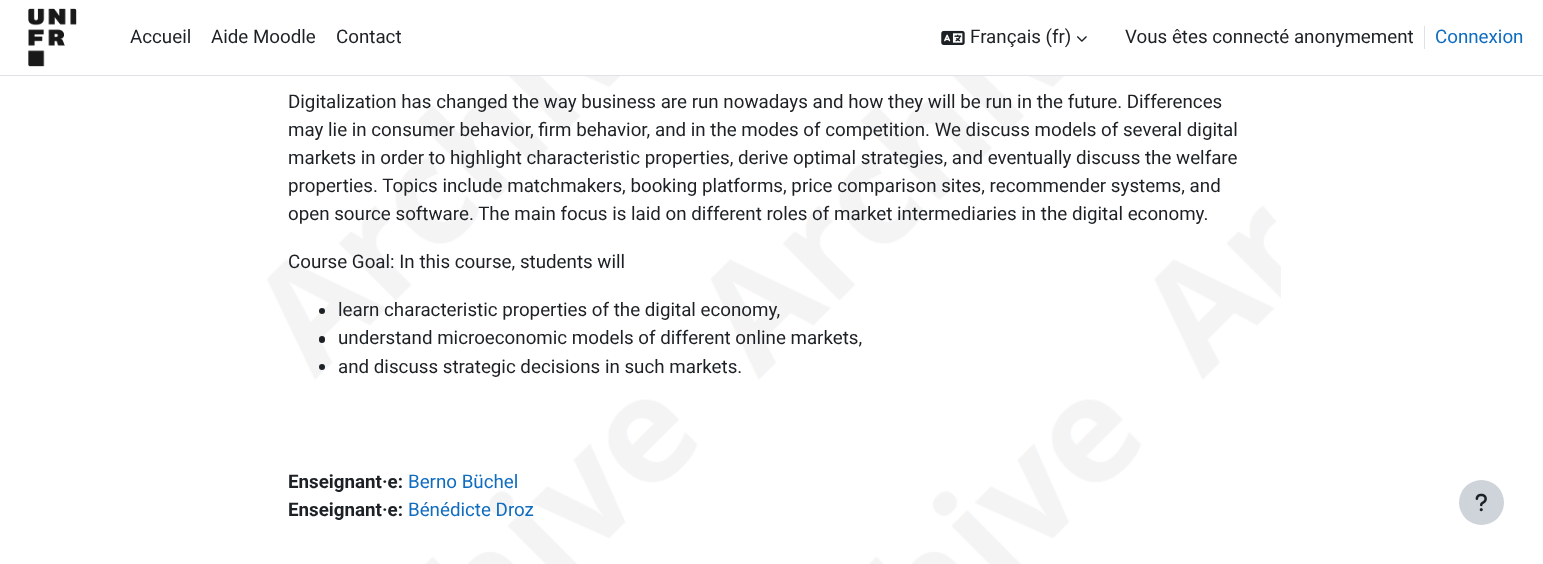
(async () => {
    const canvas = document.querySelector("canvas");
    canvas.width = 1543;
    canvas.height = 564;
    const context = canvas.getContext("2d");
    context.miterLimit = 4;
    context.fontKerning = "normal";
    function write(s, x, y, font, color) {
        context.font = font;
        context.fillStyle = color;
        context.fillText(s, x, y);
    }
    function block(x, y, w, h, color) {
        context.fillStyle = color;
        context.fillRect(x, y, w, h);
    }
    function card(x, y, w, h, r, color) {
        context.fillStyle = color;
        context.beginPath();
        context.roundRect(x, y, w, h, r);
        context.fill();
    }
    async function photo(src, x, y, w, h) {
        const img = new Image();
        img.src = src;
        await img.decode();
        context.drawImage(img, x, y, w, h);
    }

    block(0, 0, 1543, 564, "rgb(255, 255, 255)");
    block(0, 75, 1543, 1, "rgb(222, 226, 230)");
    await photo("media/1.png", 28, 8, 49, 59);
    write("Accueil", 130, 43, "18.75px Roboto", "rgb(29, 33, 37)");
    write("Aide Moodle", 211, 43, "18.75px Roboto", "rgb(29, 33, 37)");
    write("Contact", 336, 43, "18.75px Roboto", "rgb(29, 33, 37)");
    await photo("media/2.png", 941, 30, 24, 15);
    write("Français (fr)", 970, 43, "18.75px Roboto", "rgb(29, 33, 37)");
    await photo("media/3.png", 1077, 36, 10, 6);
    write("Vous êtes connecté anonymement", 1125, 43, "18.75px Roboto", "rgb(29, 33, 37)");
    block(1424, 26, 1, 23, "rgb(222, 226, 230)");
    write("Connexion", 1435, 43, "18.75px Roboto", "rgb(15, 108, 191)");
    await photo("media/4.png", 267, 76, 1014, 488);
    write("Digitalization has changed the way business are run nowadays and how they will be run in the future. Differences", 288, 108, "18.75px Roboto", "rgb(29, 33, 37)");
    write("may lie in consumer behavior, firm behavior, and in the modes of competition. We discuss models of several digital", 288, 136, "18.75px Roboto", "rgb(29, 33, 37)");
    write("markets in order to highlight characteristic properties, derive optimal strategies, and eventually discuss the welfare", 288, 164, "18.75px Roboto", "rgb(29, 33, 37)");
    write("properties. Topics include matchmakers, booking platforms, price comparison sites, recommender systems, and", 288, 192, "18.75px Roboto", "rgb(29, 33, 37)");
    write("open source software. The main focus is laid on different roles of market intermediaries in the digital economy.", 288, 220, "18.75px Roboto", "rgb(29, 33, 37)");
    write("Course Goal: In this course, students will", 288, 268, "18.75px Roboto", "rgb(29, 33, 37)");
    context.beginPath();
    context.arc(322, 311, 3, 0, Math.PI * 2);
    context.fill();
    write("learn characteristic properties of the digital economy,", 338, 316, "18.75px Roboto", "rgb(29, 33, 37)");
    card(319, 336, 6, 7, 3, "rgb(29, 33, 37)");
    write("understand microeconomic models of different online markets,", 338, 344, "18.75px Roboto", "rgb(29, 33, 37)");
    context.beginPath();
    context.arc(322, 367, 3, 0, Math.PI * 2);
    context.fill();
    write("and discuss strategic decisions in such markets.", 338, 373, "18.75px Roboto", "rgb(29, 33, 37)");
    write("Enseignant·e:", 288, 488, "bold 18.75px Roboto", "rgb(29, 33, 37)");
    write("Berno Büchel", 408, 488, "18.75px Roboto", "rgb(15, 108, 191)");
    write("Enseignant·e:", 288, 516, "bold 18.75px Roboto", "rgb(29, 33, 37)");
    write("Bénédicte Droz", 408, 516, "18.75px Roboto", "rgb(15, 108, 191)");
    context.fillStyle = "rgb(206, 212, 218)";
    context.beginPath();
    context.arc(1481.5, 502.5, 22.5, 0, Math.PI * 2);
    context.fill();
    await photo("media/5.png", 1475, 493, 12, 19);
})();
